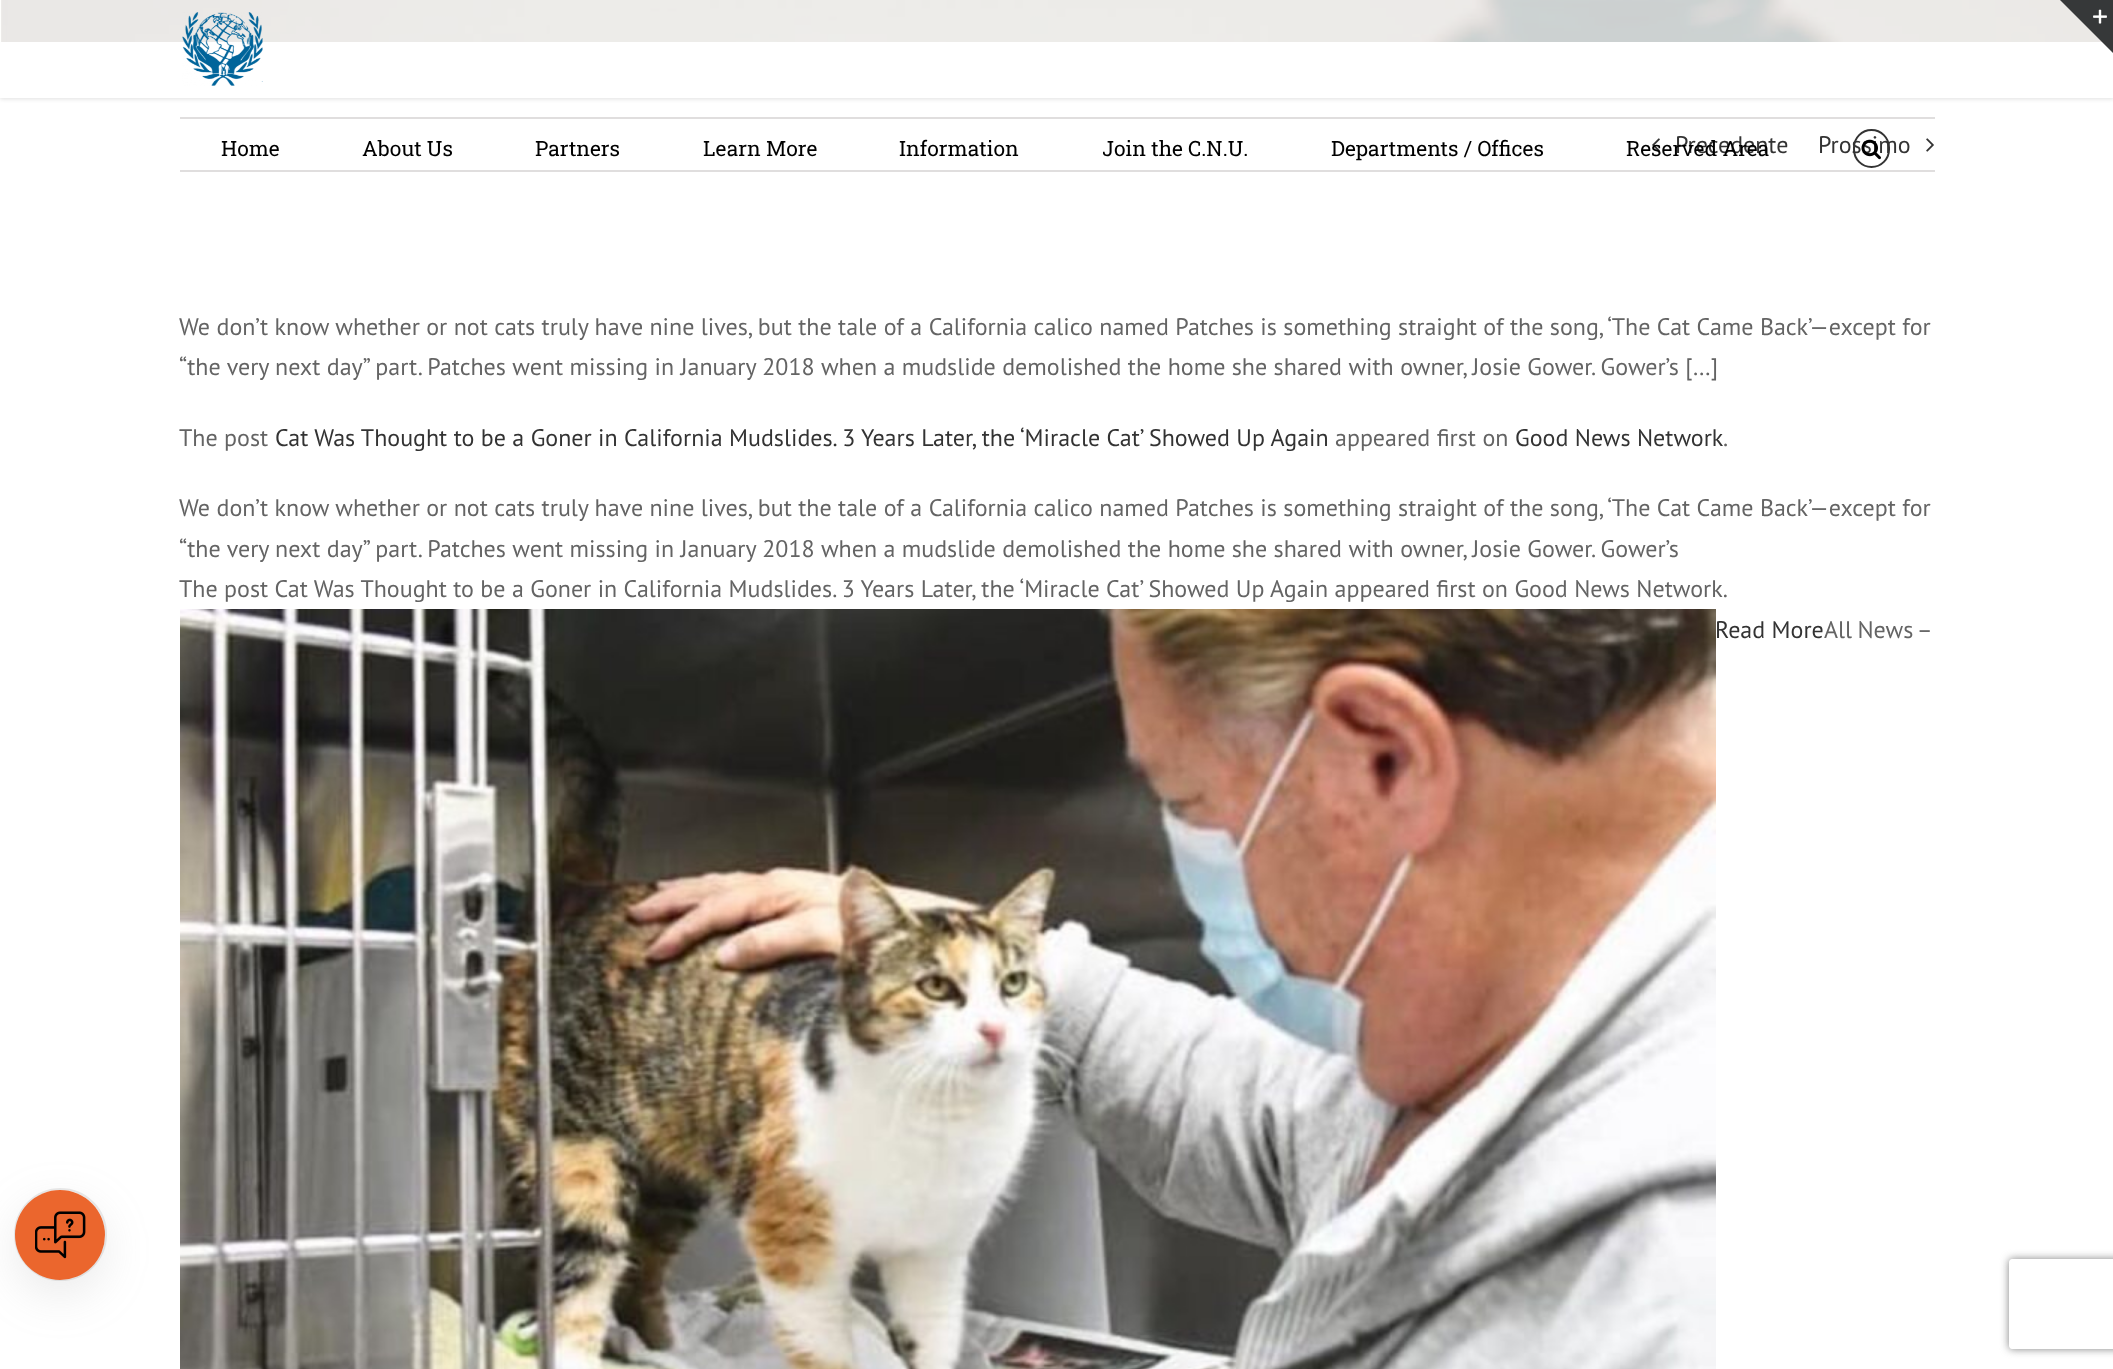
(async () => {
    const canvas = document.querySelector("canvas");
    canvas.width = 2113;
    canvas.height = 1369;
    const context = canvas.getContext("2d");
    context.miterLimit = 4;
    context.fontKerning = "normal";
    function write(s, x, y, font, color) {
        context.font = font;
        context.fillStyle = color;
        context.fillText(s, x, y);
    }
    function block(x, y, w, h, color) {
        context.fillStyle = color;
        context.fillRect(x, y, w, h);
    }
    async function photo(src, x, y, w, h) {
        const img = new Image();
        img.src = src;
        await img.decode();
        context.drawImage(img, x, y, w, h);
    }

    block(0, 0, 2113, 1369, "rgb(255, 255, 255)");
    await photo("media/1.png", 0, 0, 2102, 42);
    context.save();
    context.beginPath();
    context.moveTo(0, 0);
    context.lineTo(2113, 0);
    context.lineTo(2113, 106);
    context.lineTo(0, 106);
    context.closePath();
    context.moveTo(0, 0);
    context.lineTo(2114, 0);
    context.lineTo(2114, 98);
    context.lineTo(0, 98);
    context.closePath();
    context.clip("evenodd");
    context.fillStyle = "rgba(0, 0, 0, 0.12)";
    context.filter = "blur(2px)";
    context.beginPath();
    context.rect(0, 2, 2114, 97);
    context.fill();
    context.filter = "none";
    context.restore();
    block(0, 0, 2113, 98, "rgba(255, 255, 255, 0.8)");
    context.fillStyle = "rgb(54, 56, 57)";
    context.beginPath();
    context.moveTo(2060, 0);
    context.lineTo(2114, 0);
    context.lineTo(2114, 54);
    context.closePath();
    context.fill();
    await photo("media/2.png", 2093, 9, 14, 15);
    block(180, 117, 1755, 2, "rgb(224, 222, 222)");
    block(180, 170, 1755, 2, "rgb(224, 222, 222)");
    await photo("media/3.png", 1652, 138, 8, 14);
    write("Precedente", 1675, 153, "24px PT Sans", "rgb(51, 51, 51)");
    write("Prossimo", 1818, 153, "24px PT Sans", "rgb(51, 51, 51)");
    await photo("media/4.png", 1926, 138, 8, 14);
    write("We don’t know whether or not cats truly have nine lives, but the tale of a California calico named Patches is something straight of the song, ‘The Cat Came Back’—except for", 179, 335, "24px PT Sans", "rgb(100, 100, 100)");
    write("“the very next day” part. Patches went missing in January 2018 when a mudslide demolished the home she shared with owner, Josie Gower. Gower’s […]", 179, 375, "24px PT Sans", "rgb(100, 100, 100)");
    write("The post", 179, 446, "24px PT Sans", "rgb(100, 100, 100)");
    write("Cat Was Thought to be a Goner in California Mudslides. 3 Years Later, the ‘Miracle Cat’ Showed Up Again", 275, 446, "24px PT Sans", "rgb(51, 51, 51)");
    write("appeared first on", 1335, 446, "24px PT Sans", "rgb(100, 100, 100)");
    write("Good News Network", 1515, 446, "24px PT Sans", "rgb(51, 51, 51)");
    write(".", 1723, 446, "24px PT Sans", "rgb(100, 100, 100)");
    write("We don’t know whether or not cats truly have nine lives, but the tale of a California calico named Patches is something straight of the song, ‘The Cat Came Back’—except for", 179, 516, "24px PT Sans", "rgb(100, 100, 100)");
    write("“the very next day” part. Patches went missing in January 2018 when a mudslide demolished the home she shared with owner, Josie Gower. Gower’s", 179, 557, "24px PT Sans", "rgb(100, 100, 100)");
    write("The post Cat Was Thought to be a Goner in California Mudslides. 3 Years Later, the ‘Miracle Cat’ Showed Up Again appeared first on Good News Network.", 179, 597, "24px PT Sans", "rgb(100, 100, 100)");
    await photo("media/5.png", 180, 609, 1536, 760);
    write("Read More", 1715, 638, "24px PT Sans", "rgb(51, 51, 51)");
    context.wordSpacing = "-1px";
    write("All News –", 1824, 638, "24px PT Sans", "rgb(100, 100, 100)");
    await photo("media/6.png", 182, 12, 81, 74);
    context.wordSpacing = "0px";
    write("Home", 221, 156, "21px Roboto Slab", "rgb(0, 0, 0)");
    write("About Us", 362, 156, "21px Roboto Slab", "rgb(0, 0, 0)");
    write("Partners", 535, 156, "21px Roboto Slab", "rgb(0, 0, 0)");
    write("Learn More", 703, 156, "21px Roboto Slab", "rgb(0, 0, 0)");
    write("Information", 899, 156, "21px Roboto Slab", "rgb(0, 0, 0)");
    context.save();
    context.beginPath();
    context.rect(1103, 98, 228, 97);
    context.clip();
    write("Join the C.N.U.", 1102, 156, "21px Roboto Slab", "rgb(0, 0, 0)");
    context.restore();
    write("Departments / Offices", 1331, 156, "21px Roboto Slab", "rgb(0, 0, 0)");
    write("Reserved Area", 1626, 156, "21px Roboto Slab", "rgb(0, 0, 0)");
    context.beginPath();
    context.roundRect(1854, 130, 35, 37, 17.5);
    context.strokeStyle = "rgb(51, 51, 51)";
    context.lineWidth = 2;
    context.stroke();
    await photo("media/7.png", 1861, 139, 20, 21);
    context.beginPath();
    context.arc(60.5, 1234.5, 45.5, 0, Math.PI * 2);
    context.strokeStyle = "rgb(234, 234, 234)";
    context.stroke();
    context.fillStyle = "rgba(150, 150, 150, 0.2)";
    context.filter = "blur(22.5px)";
    context.beginPath();
    context.roundRect(15, 1205, 90, 90, 45);
    context.fill();
    context.filter = "none";
    context.fillStyle = "rgb(235, 102, 45)";
    context.beginPath();
    context.arc(60, 1235, 45, 0, Math.PI * 2);
    context.fill();
    await photo("media/8.png", 35, 1211, 51, 48);
    context.save();
    context.beginPath();
    context.moveTo(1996, 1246);
    context.lineTo(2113, 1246);
    context.lineTo(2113, 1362);
    context.lineTo(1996, 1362);
    context.closePath();
    context.moveTo(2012, 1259);
    context.lineTo(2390, 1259);
    context.bezierCurveTo(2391.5, 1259, 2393, 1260.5, 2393, 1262);
    context.lineTo(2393, 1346);
    context.bezierCurveTo(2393, 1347.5, 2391.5, 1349, 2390, 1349);
    context.lineTo(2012, 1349);
    context.bezierCurveTo(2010.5, 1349, 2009, 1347.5, 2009, 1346);
    context.lineTo(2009, 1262);
    context.bezierCurveTo(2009, 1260.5, 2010.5, 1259, 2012, 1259);
    context.closePath();
    context.clip("evenodd");
    context.fillStyle = "rgb(128, 128, 128)";
    context.filter = "blur(4px)";
    context.beginPath();
    context.roundRect(2009, 1259, 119, 90, 3);
    context.fill();
    context.filter = "none";
    context.restore();
})();
